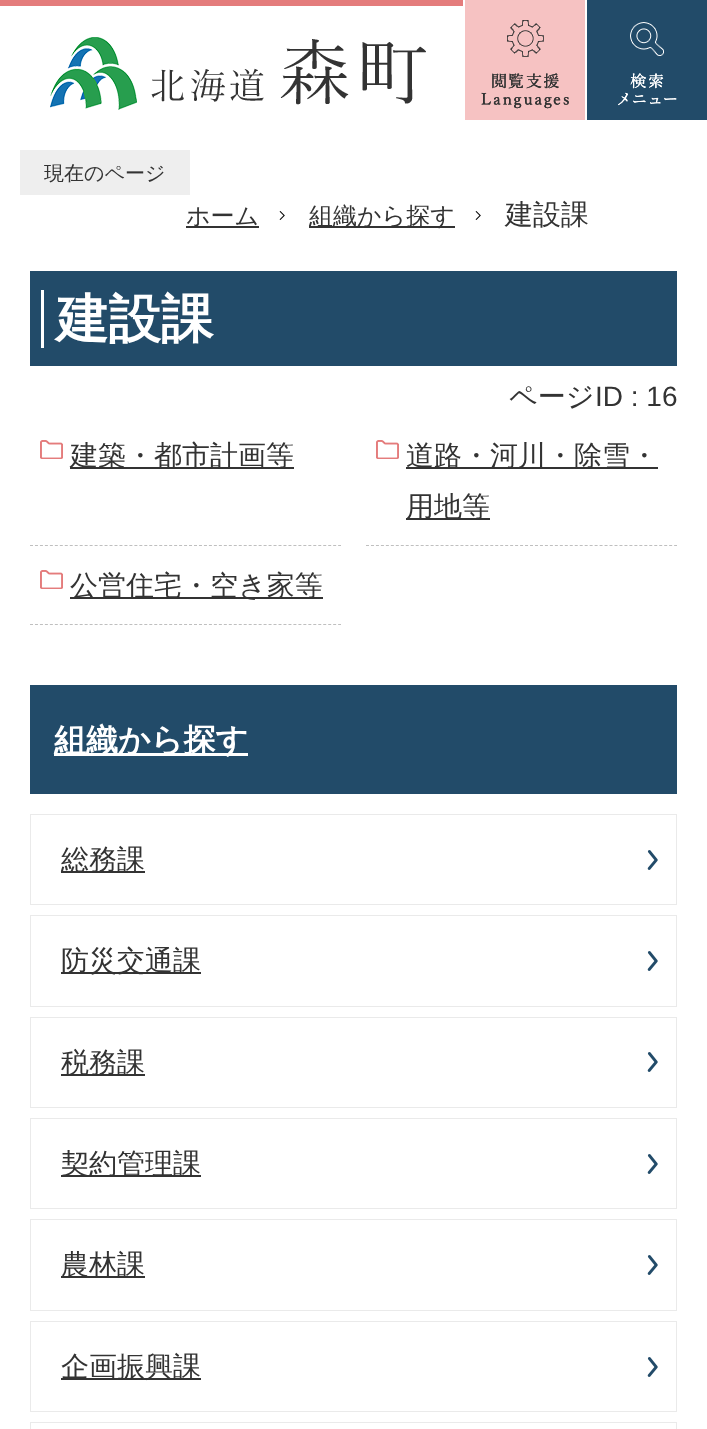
(async () => {
    const canvas = document.querySelector("canvas");
    canvas.width = 707;
    canvas.height = 1429;
    const context = canvas.getContext("2d");
    context.miterLimit = 4;
    context.fontKerning = "normal";
    function write(s, x, y, font, color) {
        context.font = font;
        context.fillStyle = color;
        context.fillText(s, x, y);
    }
    function block(x, y, w, h, color) {
        context.fillStyle = color;
        context.fillRect(x, y, w, h);
    }
    async function photo(src, x, y, w, h) {
        const img = new Image();
        img.src = src;
        await img.decode();
        context.drawImage(img, x, y, w, h);
    }

    block(0, 0, 707, 1429, "rgb(255, 255, 255)");
    block(0, 0, 463, 6, "rgb(228, 124, 124)");
    await photo("media/1.png", 50, 37, 376, 73);
    await photo("media/2.png", 465, 0, 120, 120);
    await photo("media/3.png", 587, 0, 120, 120);
    block(20, 150, 170, 45, "rgb(238, 238, 238)");
    write("現在のページ", 44, 180, "500 20px WenQuanYi Zen Hei", "rgb(51, 51, 51)");
    block(186, 226, 73, 2, "rgb(51, 51, 51)");
    write("ホーム", 186, 224, "500 24px WenQuanYi Zen Hei", "rgb(51, 51, 51)");
    await photo("media/4.png", 279, 211, 6, 9);
    block(309, 226, 146, 2, "rgb(51, 51, 51)");
    write("組織から探す", 309, 224, "500 24px WenQuanYi Zen Hei", "rgb(51, 51, 51)");
    await photo("media/4.png", 475, 211, 6, 9);
    write("建設課", 505, 224, "500 28px WenQuanYi Zen Hei", "rgb(51, 51, 51)");
    block(30, 271, 647, 95, "rgb(34, 75, 105)");
    write("建設課", 56, 337, "bold 52.5px WenQuanYi Zen Hei", "rgb(255, 255, 255)");
    block(41, 290, 3, 58, "rgb(255, 255, 255)");
    write("ページ", 509, 406, "500 28px WenQuanYi Zen Hei", "rgb(51, 51, 51)");
    write("ID : 16", 595, 406, "28px Liberation Sans", "rgb(51, 51, 51)");
    await photo("media/5.png", 40, 440, 23, 19);
    context.beginPath();
    context.moveTo(30, 545.5);
    context.lineTo(341, 545.5);
    context.strokeStyle = "rgb(191, 191, 191)";
    context.setLineDash([3, 1.97]);
    context.stroke();
    block(70, 467, 224, 2, "rgb(51, 51, 51)");
    write("建築・都市計画等", 70, 465, "500 28px WenQuanYi Zen Hei", "rgb(51, 51, 51)");
    await photo("media/5.png", 376, 440, 23, 19);
    context.beginPath();
    context.moveTo(366, 545.5);
    context.lineTo(677, 545.5);
    context.stroke();
    block(406, 467, 252, 2, "rgb(51, 51, 51)");
    write("道路・河川・除雪・", 406, 465, "500 28px WenQuanYi Zen Hei", "rgb(51, 51, 51)");
    block(406, 518, 84, 2, "rgb(51, 51, 51)");
    write("用地等", 406, 516, "500 28px WenQuanYi Zen Hei", "rgb(51, 51, 51)");
    await photo("media/5.png", 40, 570, 23, 19);
    context.beginPath();
    context.moveTo(30, 624.5);
    context.lineTo(341, 624.5);
    context.stroke();
    block(70, 597, 253, 2, "rgb(51, 51, 51)");
    write("公営住宅・空き家等", 70, 595, "500 28px WenQuanYi Zen Hei", "rgb(51, 51, 51)");
    block(30, 685, 647, 109, "rgb(34, 75, 105)");
    block(54, 753, 194, 3, "rgb(255, 255, 255)");
    write("組織から探す", 54, 751, "bold 32px WenQuanYi Zen Hei", "rgb(255, 255, 255)");
    await photo("media/6.png", 647, 850, 11, 20);
    context.strokeStyle = "rgb(234, 234, 234)";
    context.setLineDash([]);
    context.strokeRect(30.5, 814.5, 646, 90);
    block(61, 871, 84, 2, "rgb(51, 51, 51)");
    write("総務課", 61, 869, "500 28px WenQuanYi Zen Hei", "rgb(51, 51, 51)");
    await photo("media/6.png", 647, 951, 11, 20);
    context.strokeRect(30.5, 915.5, 646, 91);
    block(61, 972, 140, 2, "rgb(51, 51, 51)");
    write("防災交通課", 61, 970, "500 28px WenQuanYi Zen Hei", "rgb(51, 51, 51)");
    await photo("media/6.png", 647, 1052, 11, 20);
    context.strokeRect(30.5, 1017.5, 646, 90);
    block(61, 1074, 84, 2, "rgb(51, 51, 51)");
    write("税務課", 61, 1072, "500 28px WenQuanYi Zen Hei", "rgb(51, 51, 51)");
    await photo("media/6.png", 647, 1154, 11, 20);
    context.strokeRect(30.5, 1118.5, 646, 90);
    block(61, 1175, 140, 2, "rgb(51, 51, 51)");
    write("契約管理課", 61, 1173, "500 28px WenQuanYi Zen Hei", "rgb(51, 51, 51)");
    await photo("media/6.png", 647, 1255, 11, 20);
    context.strokeRect(30.5, 1219.5, 646, 91);
    block(61, 1276, 84, 2, "rgb(51, 51, 51)");
    write("農林課", 61, 1274, "500 28px WenQuanYi Zen Hei", "rgb(51, 51, 51)");
    await photo("media/6.png", 647, 1357, 11, 20);
    context.strokeRect(30.5, 1321.5, 646, 90);
    block(61, 1378, 140, 2, "rgb(51, 51, 51)");
    write("企画振興課", 61, 1376, "500 28px WenQuanYi Zen Hei", "rgb(51, 51, 51)");
    context.strokeRect(30.5, 1422.5, 646, 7);
})();
